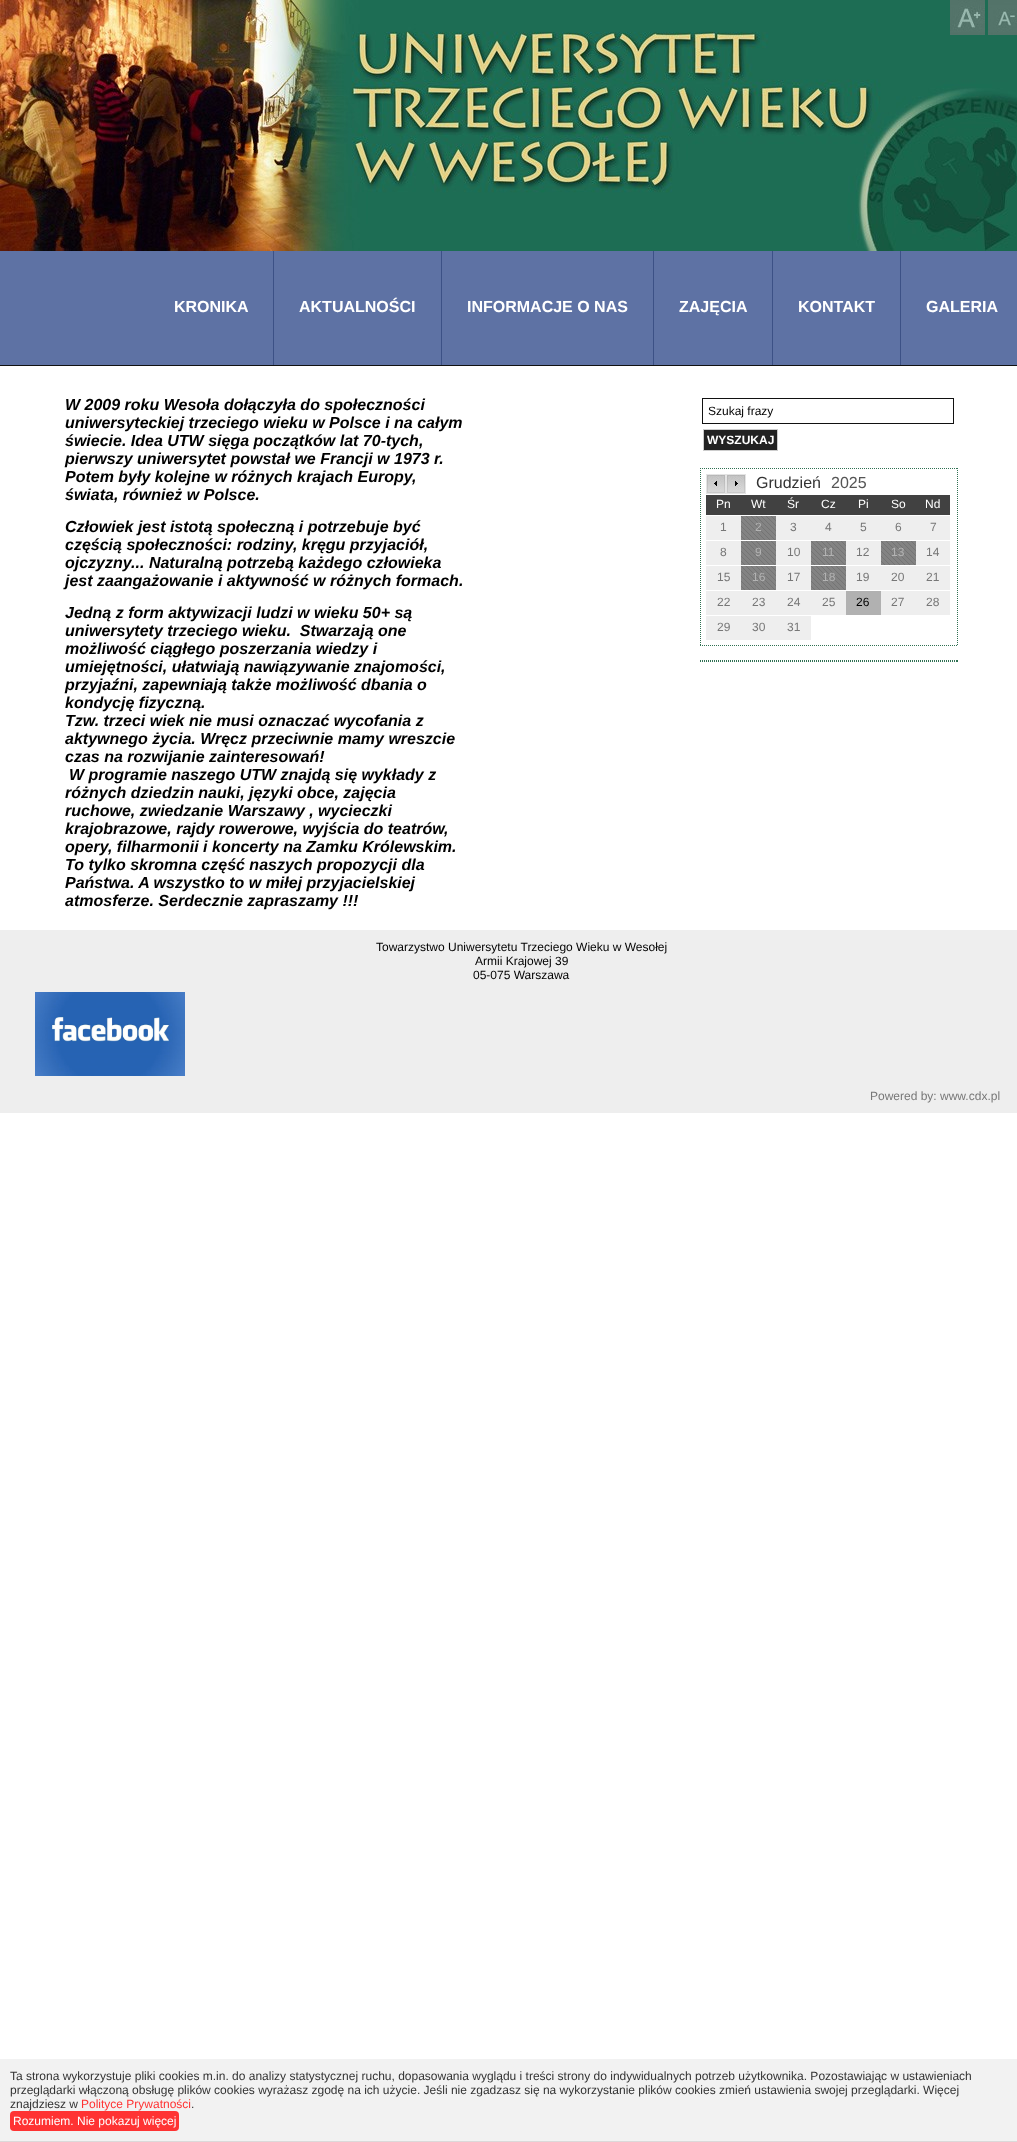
(async () => {
    const canvas = document.querySelector("canvas");
    canvas.width = 1017;
    canvas.height = 2142;
    const context = canvas.getContext("2d");
    context.miterLimit = 4;
    context.fontKerning = "normal";
    function write(s, x, y, font, color) {
        context.font = font;
        context.fillStyle = color;
        context.fillText(s, x, y);
    }
    function block(x, y, w, h, color) {
        context.fillStyle = color;
        context.fillRect(x, y, w, h);
    }
    function card(x, y, w, h, r, color) {
        context.fillStyle = color;
        context.beginPath();
        context.roundRect(x, y, w, h, r);
        context.fill();
    }
    async function photo(src, x, y, w, h) {
        const img = new Image();
        img.src = src;
        await img.decode();
        context.drawImage(img, x, y, w, h);
    }

    block(0, 0, 1017, 2142, "rgb(255, 255, 255)");
    await photo("media/1.png", 0, 0, 1017, 251);
    await photo("media/2.png", 950, 0, 35, 35);
    await photo("media/3.png", 988, 0, 29, 35);
    block(0, 251, 1017, 114, "rgb(94, 114, 164)");
    block(0, 365, 1017, 1, "rgb(17, 17, 17)");
    block(273, 251, 1, 114, "rgb(60, 81, 134)");
    write("KRONIKA", 174, 312, "bold 16px Liberation Sans", "rgb(255, 255, 255)");
    block(441, 251, 1, 114, "rgb(60, 81, 134)");
    write("AKTUALNOŚCI", 299, 312, "bold 16px Liberation Sans", "rgb(255, 255, 255)");
    block(653, 251, 1, 114, "rgb(60, 81, 134)");
    write("INFORMACJE O NAS", 467, 312, "bold 16px Liberation Sans", "rgb(255, 255, 255)");
    block(772, 251, 1, 114, "rgb(60, 81, 134)");
    write("ZAJĘCIA", 679, 312, "bold 16px Liberation Sans", "rgb(255, 255, 255)");
    block(900, 251, 1, 114, "rgb(60, 81, 134)");
    write("KONTAKT", 798, 312, "bold 16px Liberation Sans", "rgb(255, 255, 255)");
    write("GALERIA", 926, 312, "bold 16px Liberation Sans", "rgb(255, 255, 255)");
    write("W 2009 roku Wesoła dołączyła do społeczności", 65, 410, "italic bold 16px Liberation Sans", "rgb(0, 0, 0)");
    write("uniwersyteckiej trzeciego wieku w Polsce i na całym", 65, 428, "italic bold 16px Liberation Sans", "rgb(0, 0, 0)");
    write("świecie. Idea UTW sięga początków lat 70-tych,", 65, 446, "italic bold 16px Liberation Sans", "rgb(0, 0, 0)");
    write("pierwszy uniwersytet powstał we Francji w 1973 r.", 65, 464, "italic bold 16px Liberation Sans", "rgb(0, 0, 0)");
    write("Potem były kolejne w różnych krajach Europy,", 65, 482, "italic bold 16px Liberation Sans", "rgb(0, 0, 0)");
    write("świata, również w Polsce.", 65, 500, "italic bold 16px Liberation Sans", "rgb(0, 0, 0)");
    write("Człowiek jest istotą społeczną i potrzebuje być", 65, 532, "italic bold 16px Liberation Sans", "rgb(0, 0, 0)");
    write("częścią społeczności: rodziny, kręgu przyjaciół,", 65, 550, "italic bold 16px Liberation Sans", "rgb(0, 0, 0)");
    write("ojczyzny... Naturalną potrzebą każdego człowieka", 65, 568, "italic bold 16px Liberation Sans", "rgb(0, 0, 0)");
    write("jest zaangażowanie i aktywność w różnych formach.", 65, 586, "italic bold 16px Liberation Sans", "rgb(0, 0, 0)");
    write("Jedną z form aktywizacji ludzi w wieku 50+ są", 65, 618, "italic bold 16px Liberation Sans", "rgb(0, 0, 0)");
    write("uniwersytety trzeciego wieku.  Stwarzają one", 65, 636, "italic bold 16px Liberation Sans", "rgb(0, 0, 0)");
    write("możliwość ciągłego poszerzania wiedzy i", 65, 654, "italic bold 16px Liberation Sans", "rgb(0, 0, 0)");
    write("umiejętności, ułatwiają nawiązywanie znajomości,", 65, 672, "italic bold 16px Liberation Sans", "rgb(0, 0, 0)");
    write("przyjaźni, zapewniają także możliwość dbania o", 65, 690, "italic bold 16px Liberation Sans", "rgb(0, 0, 0)");
    write("kondycję fizyczną.", 65, 708, "italic bold 16px Liberation Sans", "rgb(0, 0, 0)");
    write("Tzw. trzeci wiek nie musi oznaczać wycofania z", 65, 726, "italic bold 16px Liberation Sans", "rgb(0, 0, 0)");
    write("aktywnego życia. Wręcz przeciwnie mamy wreszcie", 65, 744, "italic bold 16px Liberation Sans", "rgb(0, 0, 0)");
    write("czas na rozwijanie zainteresowań!", 65, 762, "italic bold 16px Liberation Sans", "rgb(0, 0, 0)");
    write("W programie naszego UTW znajdą się wykłady z", 69, 780, "italic bold 16px Liberation Sans", "rgb(0, 0, 0)");
    write("różnych dziedzin nauki, języki obce, zajęcia", 65, 798, "italic bold 16px Liberation Sans", "rgb(0, 0, 0)");
    write("ruchowe, zwiedzanie Warszawy , wycieczki", 65, 816, "italic bold 16px Liberation Sans", "rgb(0, 0, 0)");
    write("krajobrazowe, rajdy rowerowe, wyjścia do teatrów,", 65, 834, "italic bold 16px Liberation Sans", "rgb(0, 0, 0)");
    write("opery, filharmonii i koncerty na Zamku Królewskim.", 65, 852, "italic bold 16px Liberation Sans", "rgb(0, 0, 0)");
    write("To tylko skromna część naszych propozycji dla", 65, 870, "italic bold 16px Liberation Sans", "rgb(0, 0, 0)");
    write("Państwa. A wszystko to w miłej przyjacielskiej", 65, 888, "italic bold 16px Liberation Sans", "rgb(0, 0, 0)");
    write("atmosferze. Serdecznie zapraszamy !!!", 65, 906, "italic bold 16px Liberation Sans", "rgb(0, 0, 0)");
    context.strokeStyle = "rgb(17, 17, 17)";
    context.strokeRect(702.5, 398.5, 251, 25);
    write("Szukaj frazy", 708, 415, "12px Liberation Sans", "rgb(0, 0, 0)");
    context.fillStyle = "rgb(34, 34, 34)";
    context.beginPath();
    context.rect(703.5, 429.5, 74, 21);
    context.fill();
    context.strokeStyle = "rgb(204, 204, 204)";
    context.stroke();
    write("WYSZUKAJ", 707, 444, "bold 12px Liberation Sans", "rgb(255, 255, 255)");
    context.beginPath();
    context.moveTo(700, 468.5);
    context.lineTo(958, 468.5);
    context.strokeStyle = "rgb(48, 113, 83)";
    context.setLineDash([1, 1]);
    context.stroke();
    context.beginPath();
    context.moveTo(957.5, 468);
    context.lineTo(957.5, 646);
    context.stroke();
    context.beginPath();
    context.moveTo(700, 645.5);
    context.lineTo(958, 645.5);
    context.stroke();
    context.beginPath();
    context.moveTo(700.5, 468);
    context.lineTo(700.5, 646);
    context.stroke();
    await photo("media/4.png", 706, 474, 20, 20);
    await photo("media/5.png", 726, 474, 20, 20);
    write("Grudzień", 756, 488, "16px Liberation Sans", "rgb(51, 51, 51)");
    write("2025", 831, 488, "16px Liberation Sans", "rgb(85, 85, 85)");
    block(706, 495, 244, 20, "rgb(65, 65, 65)");
    write("Pn", 716, 508, "12px Liberation Sans", "rgb(255, 255, 255)");
    write("Wt", 751, 508, "12px Liberation Sans", "rgb(255, 255, 255)");
    write("Śr", 787, 508, "12px Liberation Sans", "rgb(255, 255, 255)");
    write("Cz", 821, 508, "12px Liberation Sans", "rgb(255, 255, 255)");
    write("Pi", 858, 508, "12px Liberation Sans", "rgb(255, 255, 255)");
    write("So", 891, 508, "12px Liberation Sans", "rgb(255, 255, 255)");
    write("Nd", 925, 508, "12px Liberation Sans", "rgb(255, 255, 255)");
    block(706, 516, 35, 24, "rgb(238, 238, 238)");
    write("1", 720, 531, "12px Liberation Sans", "rgb(119, 119, 119)");
    await photo("media/6.png", 741, 516, 35, 24);
    write("2", 755, 531, "12px Liberation Sans", "rgb(179, 179, 179)");
    block(776, 516, 174, 24, "rgb(238, 238, 238)");
    write("3", 790, 531, "12px Liberation Sans", "rgb(119, 119, 119)");
    write("4", 825, 531, "12px Liberation Sans", "rgb(119, 119, 119)");
    write("5", 860, 531, "12px Liberation Sans", "rgb(119, 119, 119)");
    write("6", 895, 531, "12px Liberation Sans", "rgb(119, 119, 119)");
    write("7", 930, 531, "12px Liberation Sans", "rgb(119, 119, 119)");
    block(706, 541, 35, 24, "rgb(238, 238, 238)");
    write("8", 720, 556, "12px Liberation Sans", "rgb(119, 119, 119)");
    await photo("media/6.png", 741, 541, 35, 24);
    write("9", 755, 556, "12px Liberation Sans", "rgb(179, 179, 179)");
    block(776, 541, 35, 24, "rgb(238, 238, 238)");
    write("10", 787, 556, "12px Liberation Sans", "rgb(119, 119, 119)");
    await photo("media/6.png", 811, 541, 35, 24);
    write("11", 822, 556, "12px Liberation Sans", "rgb(179, 179, 179)");
    block(846, 541, 35, 24, "rgb(238, 238, 238)");
    write("12", 856, 556, "12px Liberation Sans", "rgb(119, 119, 119)");
    await photo("media/6.png", 881, 541, 35, 24);
    write("13", 891, 556, "12px Liberation Sans", "rgb(179, 179, 179)");
    block(916, 541, 34, 24, "rgb(238, 238, 238)");
    write("14", 926, 556, "12px Liberation Sans", "rgb(119, 119, 119)");
    block(706, 566, 35, 24, "rgb(238, 238, 238)");
    write("15", 717, 581, "12px Liberation Sans", "rgb(119, 119, 119)");
    await photo("media/6.png", 741, 566, 35, 24);
    write("16", 752, 581, "12px Liberation Sans", "rgb(179, 179, 179)");
    block(776, 566, 35, 24, "rgb(238, 238, 238)");
    write("17", 787, 581, "12px Liberation Sans", "rgb(119, 119, 119)");
    await photo("media/6.png", 811, 566, 35, 24);
    write("18", 822, 581, "12px Liberation Sans", "rgb(179, 179, 179)");
    block(846, 566, 104, 24, "rgb(238, 238, 238)");
    write("19", 856, 581, "12px Liberation Sans", "rgb(119, 119, 119)");
    write("20", 891, 581, "12px Liberation Sans", "rgb(119, 119, 119)");
    write("21", 926, 581, "12px Liberation Sans", "rgb(119, 119, 119)");
    block(706, 591, 140, 24, "rgb(238, 238, 238)");
    write("22", 717, 606, "12px Liberation Sans", "rgb(119, 119, 119)");
    write("23", 752, 606, "12px Liberation Sans", "rgb(119, 119, 119)");
    write("24", 787, 606, "12px Liberation Sans", "rgb(119, 119, 119)");
    write("25", 822, 606, "12px Liberation Sans", "rgb(119, 119, 119)");
    block(846, 591, 35, 24, "rgb(177, 177, 177)");
    write("26", 856, 606, "12px Liberation Sans", "rgb(0, 0, 0)");
    block(881, 591, 69, 24, "rgb(238, 238, 238)");
    write("27", 891, 606, "12px Liberation Sans", "rgb(119, 119, 119)");
    write("28", 926, 606, "12px Liberation Sans", "rgb(119, 119, 119)");
    block(706, 616, 105, 24, "rgb(238, 238, 238)");
    write("29", 717, 631, "12px Liberation Sans", "rgb(119, 119, 119)");
    write("30", 752, 631, "12px Liberation Sans", "rgb(119, 119, 119)");
    write("31", 787, 631, "12px Liberation Sans", "rgb(119, 119, 119)");
    context.beginPath();
    context.moveTo(700, 660.5);
    context.lineTo(958, 660.5);
    context.stroke();
    block(957, 660, 1, 2, "rgb(48, 113, 83)");
    context.beginPath();
    context.moveTo(700, 661.5);
    context.lineTo(958, 661.5);
    context.stroke();
    block(0, 930, 1017, 183, "rgb(238, 238, 238)");
    write("Towarzystwo Uniwersytetu Trzeciego Wieku w Wesołej", 376, 951, "12px Liberation Sans", "rgb(0, 0, 0)");
    write("Armii Krajowej 39", 475, 965, "12px Liberation Sans", "rgb(0, 0, 0)");
    write("05-075 Warszawa", 473, 979, "12px Liberation Sans", "rgb(0, 0, 0)");
    await photo("media/7.png", 35, 992, 150, 84);
    write("Powered by: www.cdx.pl", 870, 1100, "12px Liberation Sans", "rgb(119, 119, 119)");
    block(0, 2059, 1017, 82, "rgb(242, 242, 242)");
    block(0, 2141, 1017, 1, "rgb(220, 217, 217)");
    write("Ta strona wykorzystuje pliki cookies m.in. do analizy statystycznej ruchu, dopasowania wyglądu i treści strony do indywidualnych potrzeb użytkownika. Pozostawiając w ustawieniach", 10, 2080, "12px Liberation Sans", "rgb(51, 51, 51)");
    write("przeglądarki włączoną obsługę plików cookies wyrażasz zgodę na ich użycie. Jeśli nie zgadzasz się na wykorzystanie plików cookies zmień ustawienia swojej przeglądarki. Więcej", 10, 2094, "12px Liberation Sans", "rgb(51, 51, 51)");
    write("znajdziesz w", 10, 2108, "12px Liberation Sans", "rgb(51, 51, 51)");
    write("Polityce Prywatności", 81, 2108, "12px Liberation Sans", "rgb(255, 51, 51)");
    write(".", 191, 2108, "12px Liberation Sans", "rgb(51, 51, 51)");
    card(10, 2111, 169, 20, 4, "rgb(255, 51, 51)");
    write("Rozumiem. Nie pokazuj więcej", 13, 2125, "12px Liberation Sans", "rgb(255, 255, 255)");
})();
